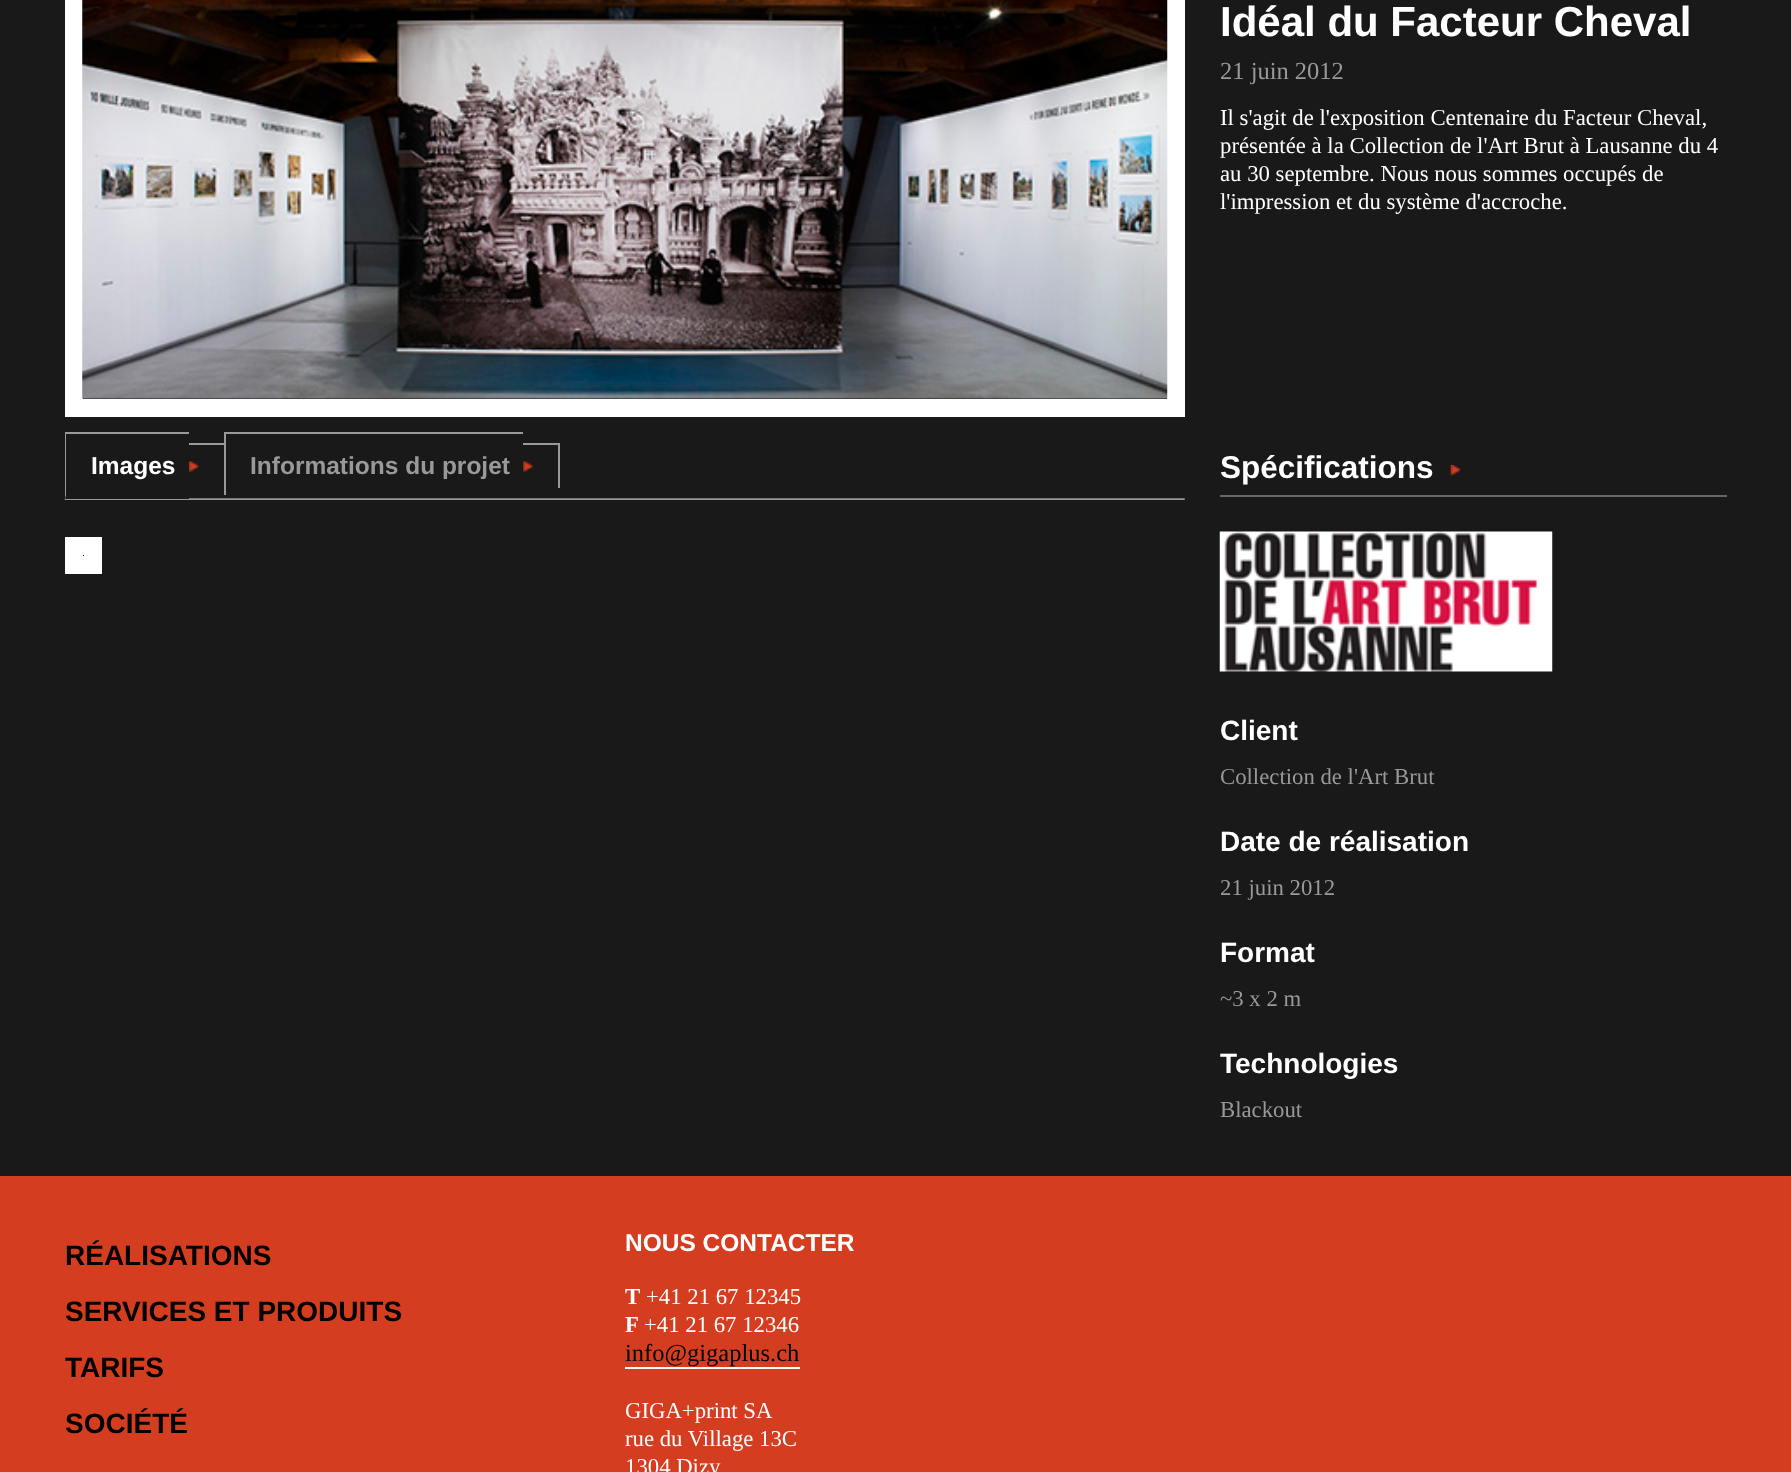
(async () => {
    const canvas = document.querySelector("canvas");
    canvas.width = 1791;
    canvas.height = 1472;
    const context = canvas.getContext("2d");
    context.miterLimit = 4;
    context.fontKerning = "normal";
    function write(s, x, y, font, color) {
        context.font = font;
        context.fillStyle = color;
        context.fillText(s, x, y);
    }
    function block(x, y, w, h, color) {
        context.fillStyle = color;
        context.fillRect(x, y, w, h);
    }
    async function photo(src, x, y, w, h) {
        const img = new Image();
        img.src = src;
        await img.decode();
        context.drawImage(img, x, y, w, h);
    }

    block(0, 0, 1791, 1472, "rgb(25, 25, 25)");
    context.strokeStyle = "rgb(255, 255, 255)";
    context.lineWidth = 18;
    context.strokeRect(74, -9, 1102, 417);
    await photo("media/1.png", 82, 0, 1086, 399);
    write("Idéal du Facteur Cheval", 1220, 36, "bold 42px Liberation Sans", "rgb(255, 255, 255)");
    write("21 juin 2012", 1220, 79, "24.5px Liberation Serif", "rgb(153, 153, 153)");
    write("Il s'agit de l'exposition Centenaire du Facteur Cheval,", 1220, 125, "22.75px Liberation Serif", "rgb(255, 255, 255)");
    write("présentée à la Collection de l'Art Brut à Lausanne du 4", 1220, 153, "22.75px Liberation Serif", "rgb(255, 255, 255)");
    write("au 30 septembre. Nous nous sommes occupés de", 1220, 181, "22.75px Liberation Serif", "rgb(255, 255, 255)");
    write("l'impression et du système d'accroche.", 1220, 209, "22.75px Liberation Serif", "rgb(255, 255, 255)");
    await photo("media/2.png", 64, 498, 1121, 2);
    write("Images", 91, 474, "bold 24.5px Liberation Sans", "rgb(255, 255, 255)");
    block(65, 432, 124, 2, "rgb(153, 153, 153)");
    context.fillStyle = "rgb(25, 25, 25)";
    context.beginPath();
    context.moveTo(189, 499);
    context.lineTo(65, 499);
    context.lineTo(66, 495);
    context.lineTo(189, 495);
    context.closePath();
    context.fill();
    context.fillStyle = "rgb(153, 153, 153)";
    context.beginPath();
    context.moveTo(65, 499);
    context.lineTo(65, 432);
    context.lineTo(66, 434);
    context.lineTo(66, 495);
    context.closePath();
    context.fill();
    block(189, 443, 37, 2, "rgb(153, 153, 153)");
    await photo("media/3.png", 189, 461, 11, 11);
    write("Informations du projet", 250, 474, "bold 24.5px Liberation Sans", "rgb(153, 153, 153)");
    block(224, 432, 299, 2, "rgb(153, 153, 153)");
    block(224, 432, 2, 63, "rgb(153, 153, 153)");
    block(523, 443, 37, 2, "rgb(153, 153, 153)");
    block(558, 443, 2, 45, "rgb(153, 153, 153)");
    await photo("media/4.png", 523, 461, 11, 11);
    context.strokeRect(74, 546, 19, 19);
    block(1220, 495, 507, 2, "rgb(102, 102, 102)");
    write("Spécifications", 1220, 478, "bold 31.5px Liberation Sans", "rgb(255, 255, 255)");
    await photo("media/5.png", 1450, 465, 12, 11);
    await photo("media/6.png", 1219, 531, 334, 141);
    write("Client", 1220, 740, "bold 28px Liberation Sans", "rgb(255, 255, 255)");
    write("Collection de l'Art Brut", 1220, 784, "22.75px Liberation Serif", "rgb(153, 153, 153)");
    write("Date de réalisation", 1220, 851, "bold 28px Liberation Sans", "rgb(255, 255, 255)");
    write("21 juin 2012", 1220, 895, "22.75px Liberation Serif", "rgb(153, 153, 153)");
    write("Format", 1220, 962, "bold 28px Liberation Sans", "rgb(255, 255, 255)");
    write("~3 x 2 m", 1220, 1006, "22.75px Liberation Serif", "rgb(153, 153, 153)");
    write("Technologies", 1220, 1073, "bold 28px Liberation Sans", "rgb(255, 255, 255)");
    write("Blackout", 1220, 1117, "22.75px Liberation Serif", "rgb(153, 153, 153)");
    block(0, 1176, 1791, 296, "rgb(213, 61, 32)");
    write("RÉALISATIONS", 65, 1265, "bold 28px Liberation Sans", "rgb(0, 0, 0)");
    write("SERVICES ET PRODUITS", 65, 1321, "bold 28px Liberation Sans", "rgb(0, 0, 0)");
    write("TARIFS", 65, 1377, "bold 28px Liberation Sans", "rgb(0, 0, 0)");
    write("SOCIÉTÉ", 65, 1433, "bold 28px Liberation Sans", "rgb(0, 0, 0)");
    write("NOUS CONTACTER", 625, 1251, "bold 24.5px Liberation Sans", "rgb(255, 255, 255)");
    write("T", 625, 1304, "bold 22.75px Liberation Serif", "rgb(255, 255, 255)");
    write("+41 21 67 12345", 646, 1304, "22.75px Liberation Serif", "rgb(255, 255, 255)");
    write("F", 625, 1332, "bold 22.75px Liberation Serif", "rgb(255, 255, 255)");
    write("+41 21 67 12346", 644, 1332, "22.75px Liberation Serif", "rgb(255, 255, 255)");
    write("info@gigaplus.ch", 625, 1361, "24.5px Liberation Serif", "rgb(0, 0, 0)");
    block(625, 1367, 175, 2, "rgb(255, 255, 255)");
    write("GIGA+print SA", 625, 1418, "22.75px Liberation Serif", "rgb(255, 255, 255)");
    write("rue du Village 13C", 625, 1446, "22.75px Liberation Serif", "rgb(255, 255, 255)");
    write("1304 Dizy", 625, 1474, "22.75px Liberation Serif", "rgb(255, 255, 255)");
})();
